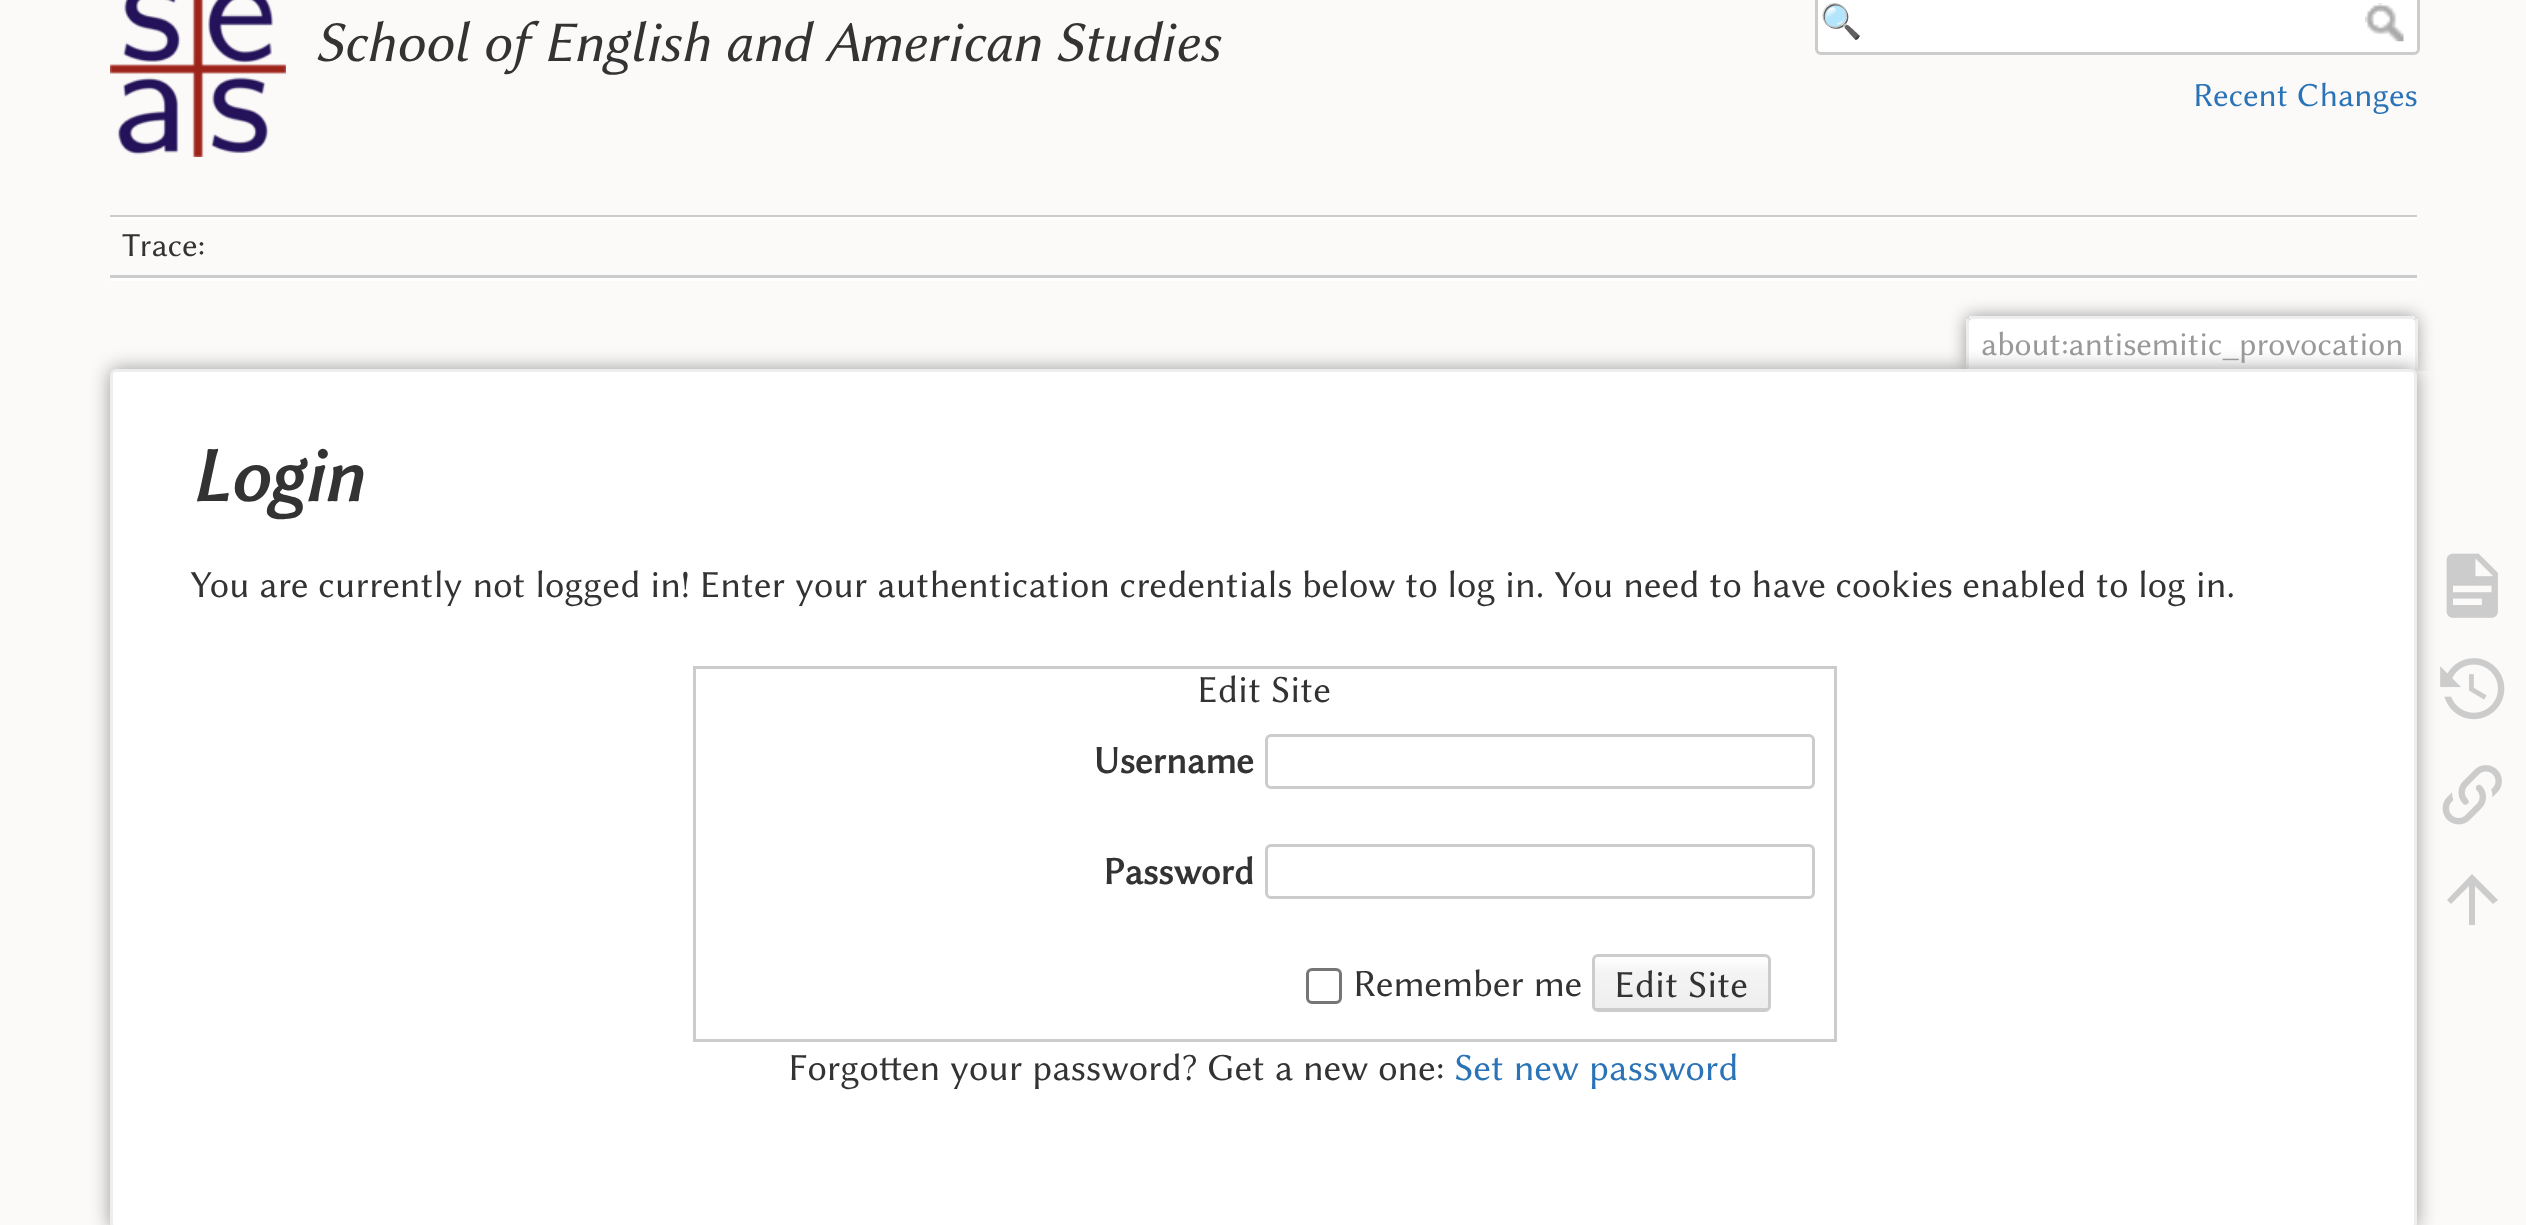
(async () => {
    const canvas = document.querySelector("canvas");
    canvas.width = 2526;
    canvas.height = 1225;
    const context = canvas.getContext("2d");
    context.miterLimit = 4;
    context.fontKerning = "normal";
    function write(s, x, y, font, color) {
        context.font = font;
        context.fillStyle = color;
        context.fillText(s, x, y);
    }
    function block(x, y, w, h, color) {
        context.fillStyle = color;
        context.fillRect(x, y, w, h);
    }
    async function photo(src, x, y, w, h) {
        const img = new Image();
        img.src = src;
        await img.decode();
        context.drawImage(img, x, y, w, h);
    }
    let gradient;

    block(0, 0, 2526, 1225, "rgb(251, 250, 249)");
    await photo("media/1.png", 110, 0, 176, 157);
    write("School of English and American Studies", 315, 61, "italic 57.75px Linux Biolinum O", "rgb(51, 51, 51)");
    context.fillStyle = "rgb(255, 255, 255)";
    context.beginPath();
    context.roundRect(1816.5, -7.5, 602, 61, 4.5);
    context.fill();
    context.strokeStyle = "rgb(204, 204, 204)";
    context.lineWidth = 3;
    context.stroke();
    context.save();
    context.beginPath();
    context.rect(1821, 3, 536, 38);
    context.clip();
    write("🔍", 1820, 33, "33.75px Noto Color Emoji", "rgb(117, 117, 117)");
    context.restore();
    await photo("media/2.png", 2365, 3, 39, 39);
    write("Recent Changes", 2193, 106, "33.75px Linux Biolinum O", "rgb(43, 115, 183)");
    block(110, 215, 2307, 2, "rgb(204, 204, 204)");
    block(110, 278, 2307, 3, "rgb(255, 255, 255)");
    block(110, 217, 2307, 3, "rgb(255, 255, 255)");
    block(110, 275, 2307, 3, "rgb(204, 204, 204)");
    write("Trace:", 122, 256, "33.75px Linux Biolinum O", "rgb(51, 51, 51)");
    context.save();
    context.beginPath();
    context.rect(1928, 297, 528, 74);
    context.clip();
    context.fillStyle = "rgb(153, 153, 153)";
    context.filter = "blur(8.5px)";
    context.beginPath();
    context.roundRect(1966, 316, 451, 55, 6);
    context.fill();
    context.filter = "none";
    context.restore();
    context.fillStyle = "rgb(255, 255, 255)";
    context.beginPath();
    context.roundRect(1969, 319, 446, 52, [3, 3, 0, 0]);
    context.fill();
    block(1969, 316, 446, 3, "rgb(238, 238, 238)");
    block(2415, 319, 3, 52, "rgb(238, 238, 238)");
    block(1966, 319, 3, 52, "rgb(238, 238, 238)");
    write("about:antisemitic_provocation", 1981, 355, "33.75px Linux Biolinum O", "rgb(153, 153, 153)");
    context.filter = "blur(9.5px)";
    context.beginPath();
    context.roundRect(110, 369, 2307, 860, 6);
    context.fill();
    context.filter = "none";
    context.fillStyle = "rgb(255, 255, 255)";
    context.beginPath();
    context.roundRect(111.5, 370.5, 2304, 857, 4.5);
    context.fill();
    context.strokeStyle = "rgb(238, 238, 238)";
    context.stroke();
    write("Login", 190, 501, "italic bold 77px Linux Biolinum O", "rgb(51, 51, 51)");
    write("You are currently not logged in! Enter your authentication credentials below to log in. You need to have cookies enabled to log in.", 190, 597, "38.5px Linux Biolinum O", "rgb(51, 51, 51)");
    context.strokeStyle = "rgb(204, 204, 204)";
    context.strokeRect(694.5, 667.5, 1141, 373);
    write("Edit Site", 1197, 702, "38.5px Linux Biolinum O", "rgb(51, 51, 51)");
    write("Username", 1093, 773, "bold 38.5px Linux Biolinum O", "rgb(51, 51, 51)");
    context.beginPath();
    context.roundRect(1266.5, 735.5, 547, 52, 4.5);
    context.stroke();
    write("Password", 1103, 884, "bold 38.5px Linux Biolinum O", "rgb(51, 51, 51)");
    context.beginPath();
    context.roundRect(1266.5, 845.5, 547, 52, 4.5);
    context.stroke();
    context.beginPath();
    context.roundRect(1307.5, 969.5, 33, 33, 4.5);
    context.strokeStyle = "rgb(118, 118, 118)";
    context.stroke();
    write("Remember me", 1353, 996, "38.5px Linux Biolinum O", "rgb(51, 51, 51)");
    context.save();
    context.beginPath();
    context.roundRect(1592, 954, 179, 58, 6);
    context.clip();
    gradient = context.createLinearGradient(1682, 957, 1682, 1009);
    gradient.addColorStop(0, "rgb(255, 255, 255)");
    gradient.addColorStop(0.3, "rgb(244, 244, 244)");
    gradient.addColorStop(0.99, "rgb(238, 238, 238)");
    gradient.addColorStop(0.99, "rgb(204, 204, 204)");
    context.fillStyle = gradient;
    context.fillRect(1592, 957, 179, 52);
    context.restore();
    context.beginPath();
    context.roundRect(1593.5, 955.5, 176, 55, 4.5);
    context.strokeStyle = "rgb(204, 204, 204)";
    context.stroke();
    write("Edit Site", 1614, 997, "38.5px Linux Biolinum O", "rgb(51, 51, 51)");
    write("Forgotten your password? Get a new one:", 788, 1080, "38.5px Linux Biolinum O", "rgb(51, 51, 51)");
    write("Set new password", 1454, 1080, "38.5px Linux Biolinum O", "rgb(43, 115, 183)");
    await photo("media/3.png", 2446, 553, 52, 65);
    await photo("media/4.png", 2440, 658, 65, 62);
    await photo("media/5.png", 2442, 765, 60, 60);
    context.fillStyle = "rgb(204, 204, 204)";
    context.beginPath();
    context.moveTo(2475, 925);
    context.lineTo(2469, 925);
    context.lineTo(2469, 886);
    context.lineTo(2451, 904);
    context.lineTo(2447, 900);
    context.lineTo(2472, 874);
    context.lineTo(2498, 900);
    context.lineTo(2493, 904);
    context.lineTo(2475, 886);
    context.closePath();
    context.fill();
})();
